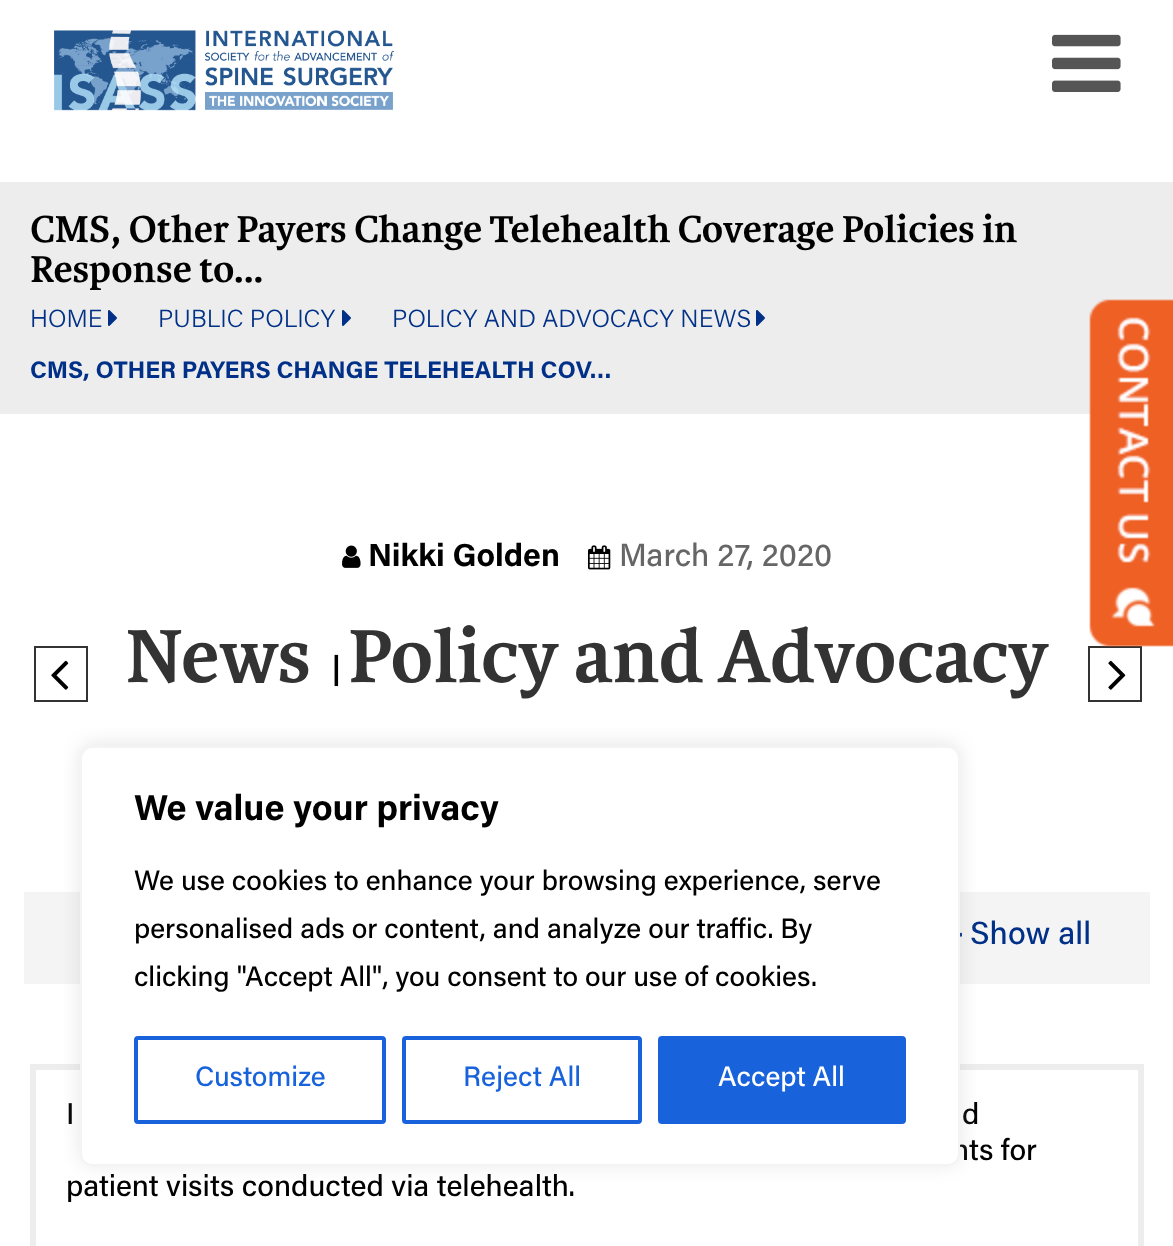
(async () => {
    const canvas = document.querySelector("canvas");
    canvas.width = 1173;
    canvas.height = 1246;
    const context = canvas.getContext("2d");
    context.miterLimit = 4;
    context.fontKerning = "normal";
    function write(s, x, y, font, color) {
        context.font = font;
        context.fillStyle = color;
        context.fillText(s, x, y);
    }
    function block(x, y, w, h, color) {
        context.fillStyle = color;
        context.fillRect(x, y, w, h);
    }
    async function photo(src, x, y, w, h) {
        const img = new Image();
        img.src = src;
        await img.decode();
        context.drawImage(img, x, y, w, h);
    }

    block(0, 0, 1173, 1246, "rgb(255, 255, 255)");
    await photo("media/1.png", 54, 30, 340, 81);
    await photo("media/2.png", 1052, 34, 69, 58);
    block(0, 182, 1173, 232, "rgb(237, 237, 237)");
    write("CMS, Other Payers Change Telehealth Coverage Policies in", 30, 242, "bold 40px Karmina", "rgb(0, 0, 0)");
    write("Response to…", 30, 282, "bold 40px Karmina", "rgb(0, 0, 0)");
    write("HOME", 30, 327, "300 24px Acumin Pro", "rgb(0, 48, 135)");
    await photo("media/3.png", 108, 310, 9, 16);
    write("PUBLIC POLICY", 158, 327, "300 24px Acumin Pro", "rgb(0, 48, 135)");
    await photo("media/3.png", 342, 310, 9, 16);
    write("POLICY AND ADVOCACY NEWS", 392, 327, "300 24px Acumin Pro", "rgb(0, 48, 135)");
    await photo("media/3.png", 756, 310, 9, 16);
    write("CMS, OTHER PAYERS CHANGE TELEHEALTH COV…", 30, 378, "bold 24px Acumin Pro", "rgb(0, 48, 135)");
    await photo("media/4.png", 342, 545, 19, 23);
    write("Nikki Golden", 368, 566, "bold 32px Acumin Pro", "rgb(0, 0, 0)");
    await photo("media/5.png", 588, 545, 23, 25);
    write("March 27, 2020", 619, 566, "500 32px Acumin Pro", "rgb(102, 102, 102)");
    context.strokeStyle = "rgb(51, 51, 51)";
    context.lineWidth = 2;
    context.strokeRect(35, 647, 52, 54);
    await photo("media/6.png", 51, 660, 18, 30);
    write("News", 125, 682, "bold 80px Karmina", "rgb(51, 51, 51)");
    write("|", 331, 682, "bold 36px Karmina", "rgb(0, 0, 0)");
    write("Policy and Advocacy", 348, 682, "bold 80px Karmina", "rgb(51, 51, 51)");
    context.strokeRect(1089, 647, 52, 54);
    await photo("media/7.png", 1108, 660, 18, 30);
    block(24, 892, 1126, 92, "rgb(244, 244, 244)");
    await photo("media/8.png", 960, 932, 2, 5);
    write("Show all", 970, 944, "500 32px Acumin Pro", "rgb(0, 48, 135)");
    context.strokeStyle = "rgb(237, 237, 237)";
    context.lineWidth = 6;
    context.strokeRect(33, 1067, 1108, 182);
    write("I", 66, 1124, "500 30px Acumin Pro", "rgb(0, 0, 0)");
    write("d", 962, 1124, "500 30px Acumin Pro", "rgb(0, 0, 0)");
    write("nts for", 952, 1160, "500 30px Acumin Pro", "rgb(0, 0, 0)");
    write("patient visits conducted via telehealth.", 66, 1196, "500 30px Acumin Pro", "rgb(0, 0, 0)");
    await photo("media/9.png", 1089, 299, 84, 348);
    context.fillStyle = "rgba(172, 171, 171, 0.3)";
    context.filter = "blur(10px)";
    context.beginPath();
    context.roundRect(80, 744, 880, 420, 12);
    context.fill();
    context.filter = "none";
    context.fillStyle = "rgb(255, 255, 255)";
    context.beginPath();
    context.roundRect(81, 747, 878, 418, 11);
    context.fill();
    context.strokeStyle = "rgb(244, 244, 244)";
    context.lineWidth = 2;
    context.stroke();
    write("We value your privacy", 134, 820, "bold 36px Acumin Pro", "rgb(0, 0, 0)");
    write("We use cookies to enhance your browsing experience, serve", 134, 890, "500 28px Acumin Pro", "rgb(0, 0, 0)");
    write("personalised ads or content, and analyze our traffic. By", 134, 938, "500 28px Acumin Pro", "rgb(0, 0, 0)");
    write("clicking \"Accept All\", you consent to our use of cookies.", 134, 986, "500 28px Acumin Pro", "rgb(0, 0, 0)");
    context.beginPath();
    context.roundRect(136, 1038, 248, 84, 2);
    context.strokeStyle = "rgb(24, 99, 220)";
    context.lineWidth = 4;
    context.stroke();
    write("Customize", 195, 1086, "500 28px Acumin Pro", "rgb(24, 99, 220)");
    context.beginPath();
    context.roundRect(404, 1038, 236, 84, 2);
    context.stroke();
    write("Reject All", 463, 1086, "500 28px Acumin Pro", "rgb(24, 99, 220)");
    context.beginPath();
    context.roundRect(660, 1038, 244, 84, 2);
    context.fill();
    context.stroke();
    write("Accept All", 718, 1086, "500 28px Acumin Pro", "rgb(255, 255, 255)");
})();
